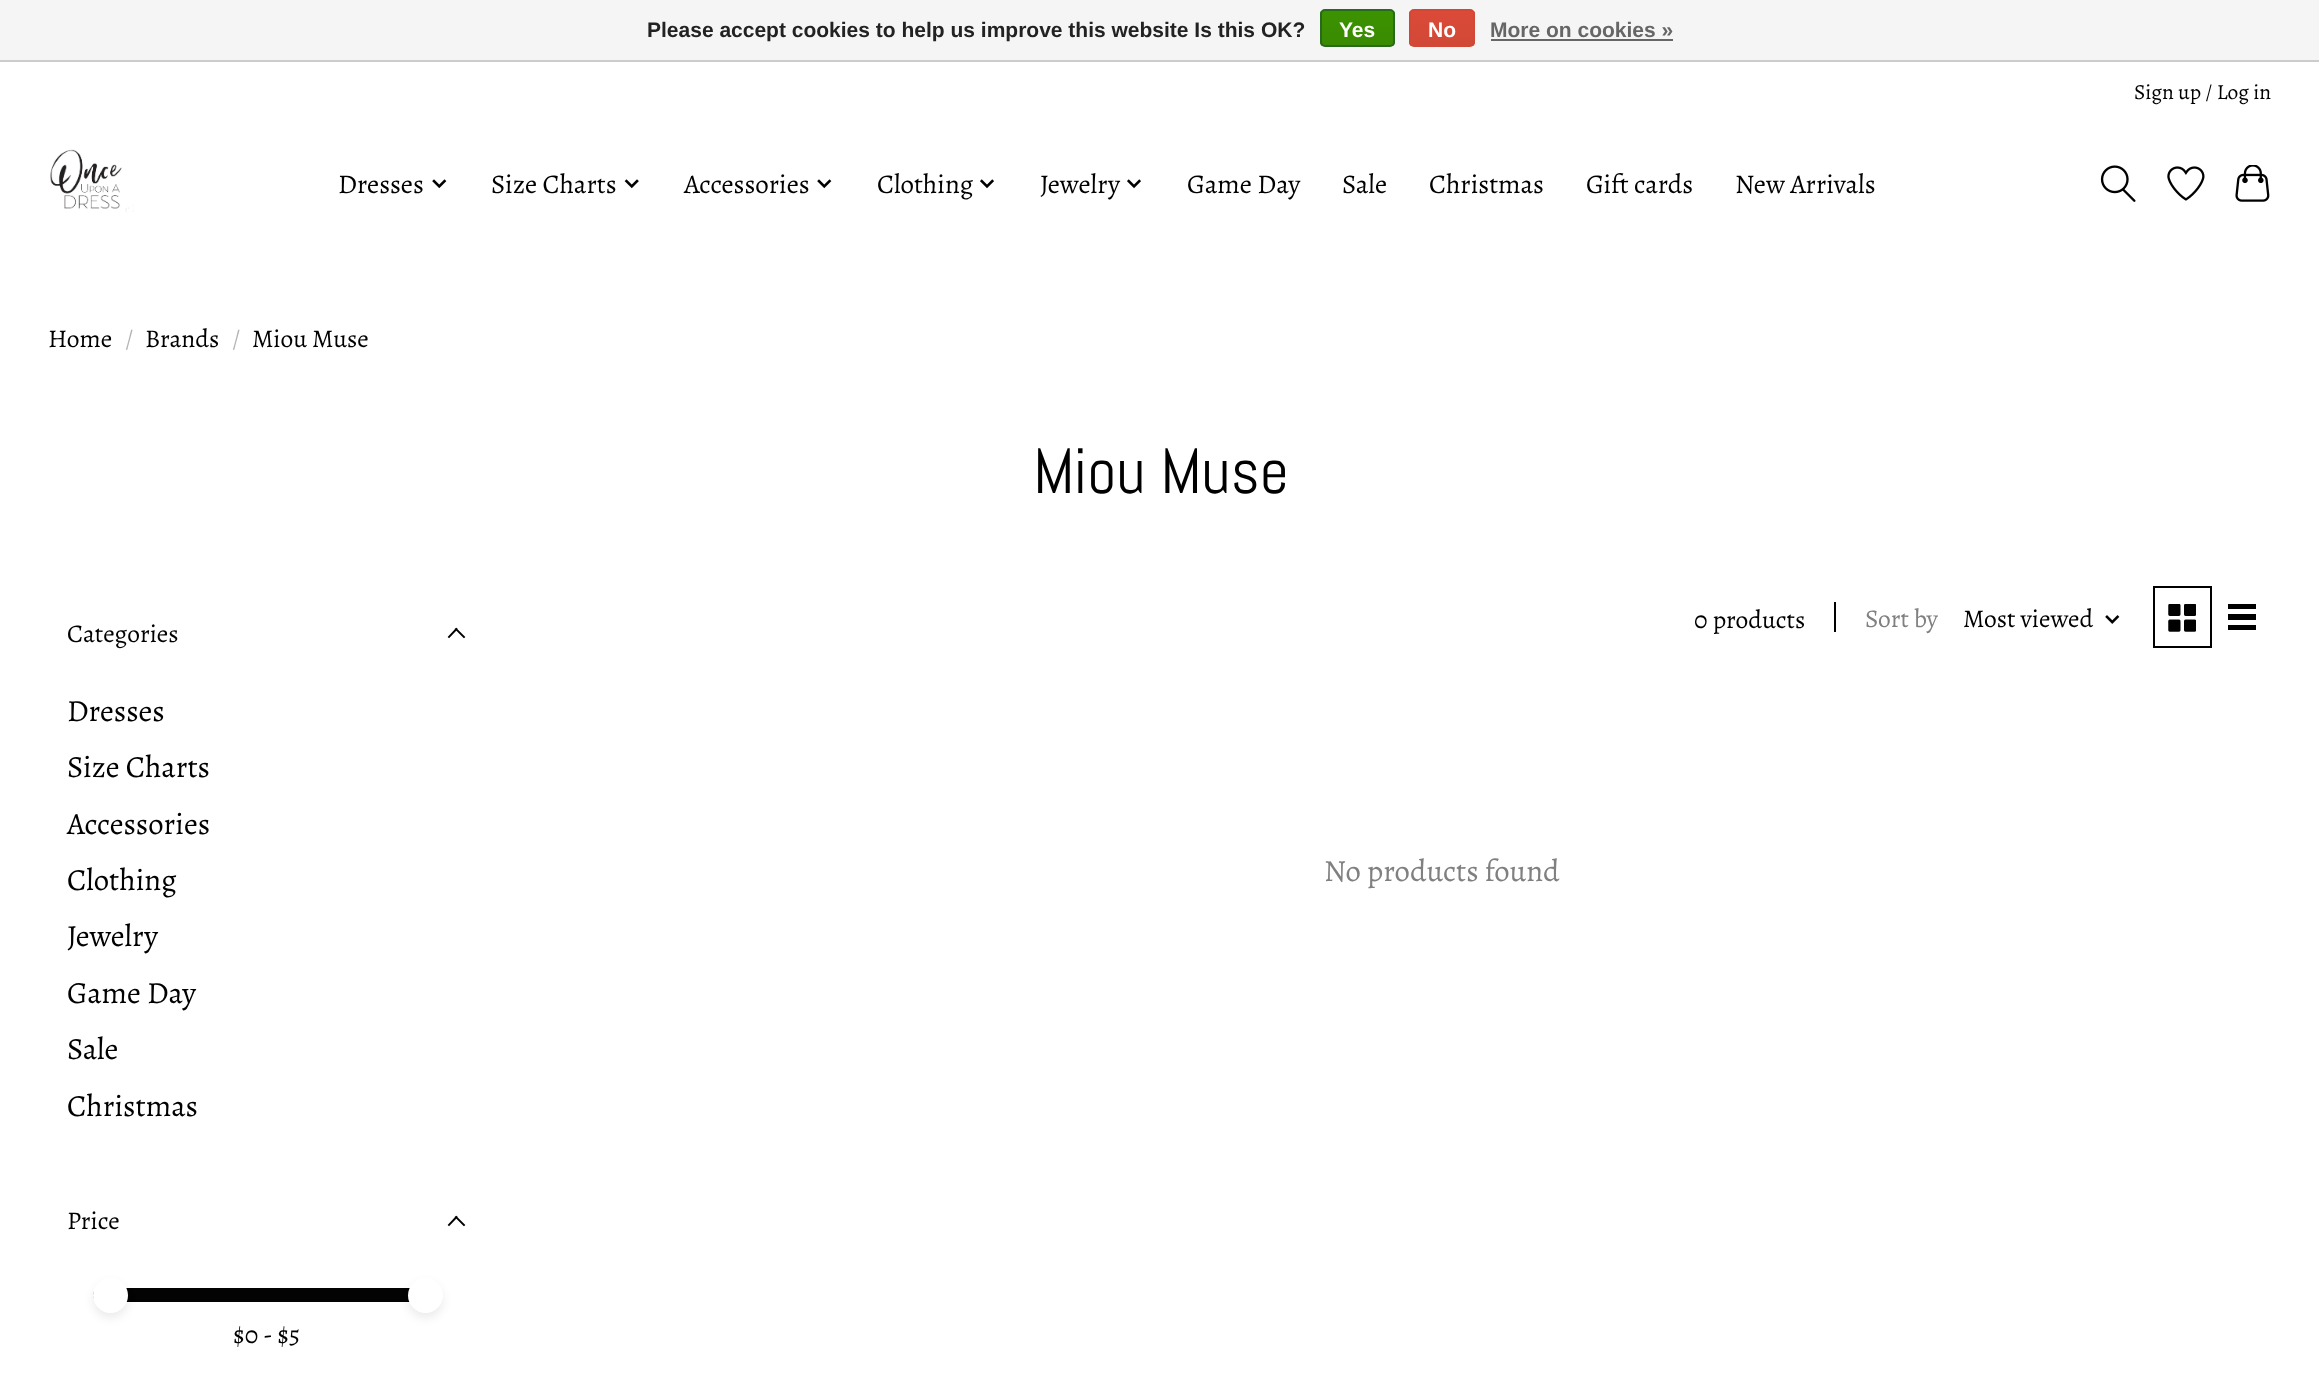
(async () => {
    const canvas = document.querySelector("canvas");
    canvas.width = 2319;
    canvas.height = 1382;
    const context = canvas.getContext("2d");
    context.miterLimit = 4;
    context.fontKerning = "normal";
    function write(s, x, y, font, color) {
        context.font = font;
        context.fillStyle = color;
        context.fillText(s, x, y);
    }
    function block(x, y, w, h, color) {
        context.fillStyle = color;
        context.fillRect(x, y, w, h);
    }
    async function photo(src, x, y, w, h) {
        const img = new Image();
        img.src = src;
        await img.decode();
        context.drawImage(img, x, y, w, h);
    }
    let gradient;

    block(0, 0, 2319, 1382, "rgb(255, 255, 255)");
    block(0, 0, 2319, 60, "rgb(245, 245, 245)");
    block(0, 60, 2319, 2, "rgb(204, 204, 204)");
    write("Please accept cookies to help us improve this website Is this OK?", 647, 37, "bold 21px Liberation Sans", "rgb(34, 34, 34)");
    context.save();
    context.beginPath();
    context.roundRect(1320, 9, 75, 38, 5);
    context.clip();
    gradient = context.createLinearGradient(1357, 10, 1357, 46);
    gradient.addColorStop(0, "rgb(60, 147, 0)");
    gradient.addColorStop(1, "rgb(57, 138, 0)");
    context.fillStyle = gradient;
    context.fillRect(1320, 11, 75, 35);
    context.restore();
    context.beginPath();
    context.roundRect(1321, 10, 73, 36, 4);
    context.strokeStyle = "rgb(41, 105, 29)";
    context.lineWidth = 2;
    context.stroke();
    write("Yes", 1339, 37, "bold 21px Liberation Sans", "rgb(255, 255, 255)");
    context.save();
    context.beginPath();
    context.roundRect(1409, 9, 66, 38, 5);
    context.clip();
    gradient = context.createLinearGradient(1442, 10, 1442, 46);
    gradient.addColorStop(0, "rgb(220, 74, 56)");
    gradient.addColorStop(1, "rgb(209, 72, 54)");
    context.fillStyle = gradient;
    context.fillRect(1409, 11, 66, 35);
    context.restore();
    context.beginPath();
    context.roundRect(1410, 10, 64, 36, 4);
    context.strokeStyle = "rgb(209, 72, 54)";
    context.stroke();
    write("No", 1428, 37, "bold 21px Liberation Sans", "rgb(255, 255, 255)");
    write("More on cookies »", 1490, 37, "bold 21px Liberation Sans", "rgb(102, 102, 102)");
    block(1491, 39, 182, 2, "rgb(102, 102, 102)");
    write("Sign up / Log in", 2134, 99, "21.5px Alegreya", "rgb(0, 0, 0)");
    await photo("media/1.png", 50, 149, 84, 64);
    write("Dresses", 338, 193, "27px Alegreya", "rgb(0, 0, 0)");
    await photo("media/2.png", 432, 179, 15, 10);
    write("Size Charts", 491, 193, "27px Alegreya", "rgb(0, 0, 0)");
    await photo("media/3.png", 624, 179, 15, 10);
    write("Accessories", 684, 193, "27px Alegreya", "rgb(0, 0, 0)");
    await photo("media/2.png", 817, 179, 15, 10);
    write("Clothing", 877, 193, "27px Alegreya", "rgb(0, 0, 0)");
    await photo("media/4.png", 980, 179, 14, 10);
    write("Jewelry", 1040, 193, "27px Alegreya", "rgb(0, 0, 0)");
    await photo("media/4.png", 1127, 179, 14, 10);
    write("Game Day", 1187, 193, "27px Alegreya", "rgb(0, 0, 0)");
    write("Sale", 1342, 193, "27px Alegreya", "rgb(0, 0, 0)");
    write("Christmas", 1429, 193, "27px Alegreya", "rgb(0, 0, 0)");
    write("Gift cards", 1586, 193, "27px Alegreya", "rgb(0, 0, 0)");
    write("New Arrivals", 1735, 193, "27px Alegreya", "rgb(0, 0, 0)");
    await photo("media/5.png", 2100, 165, 36, 37);
    await photo("media/6.png", 2167, 166, 38, 35);
    await photo("media/7.png", 2235, 165, 35, 37);
    write("Home", 48, 347, "25.5px Alegreya", "rgb(0, 0, 0)");
    write("/", 125, 347, "25.5px Alegreya", "rgb(179, 179, 179)");
    write("Brands", 145, 347, "25.5px Alegreya", "rgb(0, 0, 0)");
    write("/", 232, 347, "25.5px Alegreya", "rgb(179, 179, 179)");
    write("Miou Muse", 252, 347, "25.5px Alegreya", "rgb(0, 0, 0)");
    write("Miou Muse", 1033, 493, "64px Abel", "rgb(0, 0, 0)");
    write("Categories", 67, 642, "25.5px Alegreya", "rgb(0, 0, 0)");
    context.beginPath();
    context.moveTo(449, 637);
    context.lineTo(456.5, 629);
    context.moveTo(464, 637);
    context.lineTo(456, 629);
    context.strokeStyle = "rgb(0, 0, 0)";
    context.lineWidth = 1.9;
    context.lineCap = "square";
    context.stroke();
    write("Dresses", 67, 721, "30.75px Alegreya", "rgb(0, 0, 0)");
    write("Size Charts", 67, 777, "30.75px Alegreya", "rgb(0, 0, 0)");
    write("Accessories", 67, 834, "30.75px Alegreya", "rgb(0, 0, 0)");
    write("Clothing", 67, 890, "30.75px Alegreya", "rgb(0, 0, 0)");
    write("Jewelry", 67, 946, "30.75px Alegreya", "rgb(0, 0, 0)");
    write("Game Day", 67, 1003, "30.75px Alegreya", "rgb(0, 0, 0)");
    write("Sale", 67, 1059, "30.75px Alegreya", "rgb(0, 0, 0)");
    write("Christmas", 67, 1116, "30.75px Alegreya", "rgb(0, 0, 0)");
    write("Price", 67, 1229, "25.5px Alegreya", "rgb(0, 0, 0)");
    context.beginPath();
    context.moveTo(449, 1225);
    context.lineTo(456.5, 1217);
    context.moveTo(464, 1225);
    context.lineTo(456, 1217);
    context.stroke();
    context.fillStyle = "rgb(3, 3, 3)";
    context.beginPath();
    context.roundRect(93, 1288, 332, 14, [7, 0, 0, 7]);
    context.fill();
    context.fillStyle = "rgba(0, 0, 0, 0.08)";
    context.filter = "blur(5px)";
    context.beginPath();
    context.roundRect(93, 1283, 35, 35, 17.5);
    context.fill();
    context.filter = "none";
    context.fillStyle = "rgb(255, 255, 255)";
    context.beginPath();
    context.arc(110.5, 1295.5, 17.5, 0, Math.PI * 2);
    context.fill();
    context.fillStyle = "rgba(0, 0, 0, 0.08)";
    context.filter = "blur(5px)";
    context.beginPath();
    context.roundRect(408, 1283, 35, 35, 17.5);
    context.fill();
    context.filter = "none";
    context.fillStyle = "rgb(255, 255, 255)";
    context.beginPath();
    context.arc(425.5, 1295.5, 17.5, 0, Math.PI * 2);
    context.fill();
    write("$0", 233, 1343, "25.5px Alegreya", "rgb(0, 0, 0)");
    write("- $5", 263, 1343, "25.5px Alegreya", "rgb(0, 0, 0)");
    write("0 products", 1694, 628, "25.5px Alegreya", "rgb(0, 0, 0)");
    block(1834, 602, 2, 30, "rgb(0, 0, 0)");
    write("Sort by", 1865, 627, "25.5px Alegreya", "rgb(128, 128, 128)");
    write("Most viewed", 1963, 627, "25.5px Alegreya", "rgb(0, 0, 0)");
    await photo("media/8.png", 2105, 615, 15, 9);
    context.lineWidth = 2;
    context.strokeRect(2154, 587, 57, 60);
    await photo("media/9.png", 2168, 604, 28, 28);
    block(2228, 604, 28, 5, "rgb(0, 0, 0)");
    block(2228, 614, 28, 6, "rgb(0, 0, 0)");
    block(2228, 625, 28, 5, "rgb(0, 0, 0)");
    write("No products found", 1324, 881, "30.75px Alegreya", "rgb(128, 128, 128)");
})();
